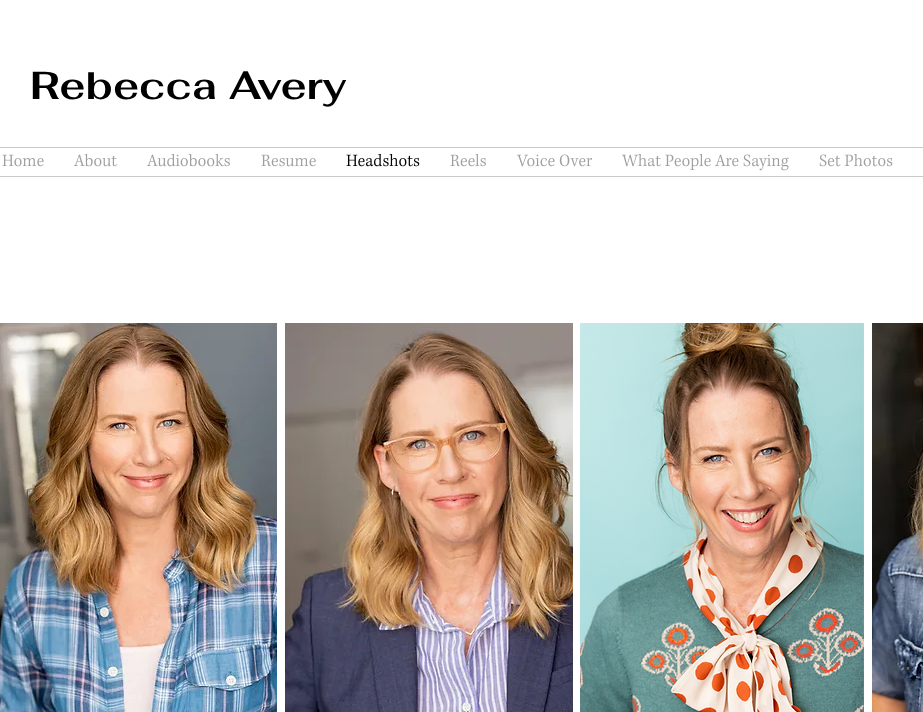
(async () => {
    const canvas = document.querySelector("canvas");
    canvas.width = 923;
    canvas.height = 712;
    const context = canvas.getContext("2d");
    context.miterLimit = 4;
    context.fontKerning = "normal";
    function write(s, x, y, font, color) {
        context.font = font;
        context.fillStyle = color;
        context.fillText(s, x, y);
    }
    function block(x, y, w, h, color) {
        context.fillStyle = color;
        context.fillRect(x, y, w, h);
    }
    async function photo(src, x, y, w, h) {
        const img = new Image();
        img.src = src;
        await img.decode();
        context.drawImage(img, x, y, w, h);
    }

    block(0, 0, 923, 712, "rgb(255, 255, 255)");
    write("Rebecca Avery", 30, 99, "bold 39px Fahkwang", "rgb(0, 0, 0)");
    block(0, 147, 923, 1, "rgb(202, 202, 202)");
    block(0, 176, 923, 1, "rgb(202, 202, 202)");
    await photo("media/1.png", 2, 154, 42, 13);
    await photo("media/2.png", 73, 154, 44, 13);
    await photo("media/3.png", 146, 154, 84, 13);
    await photo("media/4.png", 261, 154, 55, 13);
    await photo("media/5.png", 346, 153, 74, 14);
    await photo("media/6.png", 450, 154, 36, 13);
    await photo("media/7.png", 517, 154, 75, 13);
    await photo("media/8.png", 622, 154, 167, 17);
    await photo("media/9.png", 819, 154, 74, 13);
    await photo("media/10.png", 0, 323, 277, 389);
    await photo("media/11.png", 285, 323, 288, 389);
    await photo("media/12.png", 580, 323, 284, 389);
    await photo("media/13.png", 872, 323, 51, 389);
})();
